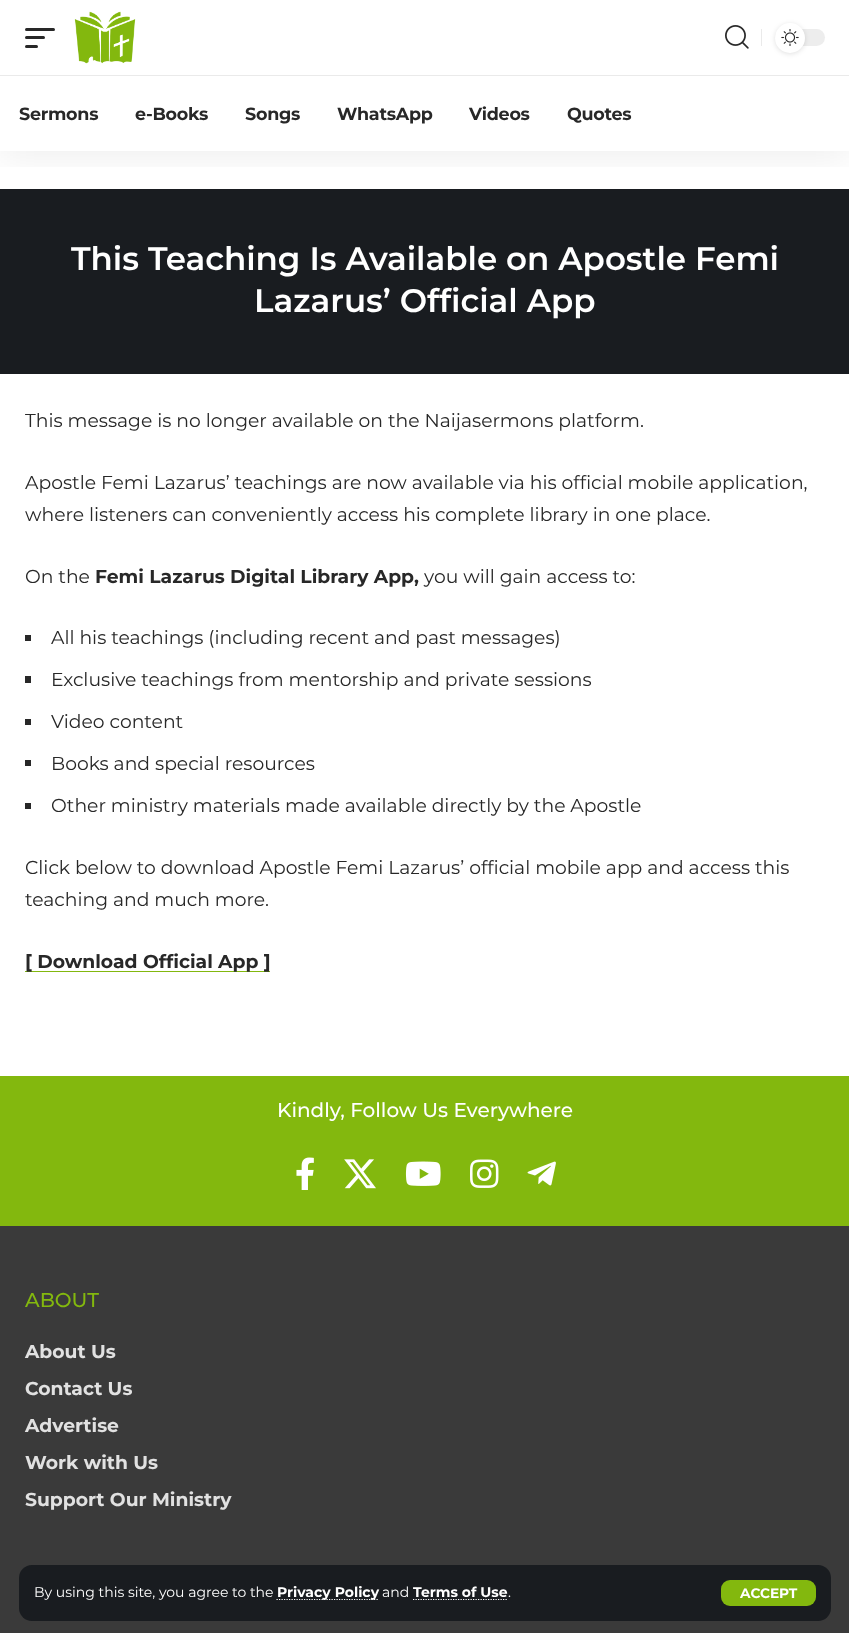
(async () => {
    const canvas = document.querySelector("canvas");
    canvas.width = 849;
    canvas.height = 1633;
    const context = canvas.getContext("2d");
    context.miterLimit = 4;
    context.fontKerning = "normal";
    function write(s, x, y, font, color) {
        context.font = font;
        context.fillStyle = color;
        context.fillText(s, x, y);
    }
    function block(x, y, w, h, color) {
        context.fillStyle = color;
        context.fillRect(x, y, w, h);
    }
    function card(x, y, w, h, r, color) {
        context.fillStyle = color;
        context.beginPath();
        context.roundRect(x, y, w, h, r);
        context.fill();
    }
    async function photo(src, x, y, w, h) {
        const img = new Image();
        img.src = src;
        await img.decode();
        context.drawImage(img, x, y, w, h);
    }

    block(0, 0, 849, 1633, "rgb(255, 255, 255)");
    block(0, 189, 849, 185, "rgb(25, 28, 32)");
    context.save();
    context.beginPath();
    context.rect(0, 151, 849, 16);
    context.clip();
    context.fillStyle = "rgba(0, 0, 0, 0.07)";
    context.filter = "blur(19px)";
    context.beginPath();
    context.rect(0, 5, 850, 151);
    context.fill();
    context.filter = "none";
    context.restore();
    card(25, 28, 30, 3, 1.5, "rgb(40, 40, 40)");
    card(25, 36, 20, 3, 1.5, "rgb(40, 40, 40)");
    card(25, 45, 13, 3, 1.5, "rgb(40, 40, 40)");
    await photo("media/1.png", 74, 11, 62, 53);
    await photo("media/2.png", 725, 25, 24, 24);
    block(761, 29, 1, 17, "rgb(234, 234, 234)");
    card(775, 29, 50, 17, 8.5, "rgb(237, 237, 237)");
    context.fillStyle = "rgba(0, 0, 0, 0.12)";
    context.filter = "blur(2.5px)";
    context.beginPath();
    context.roundRect(775, 24, 30, 30, 15);
    context.fill();
    context.filter = "none";
    context.fillStyle = "rgb(255, 255, 255)";
    context.beginPath();
    context.arc(790, 38, 15, 0, Math.PI * 2);
    context.fill();
    await photo("media/3.png", 781, 29, 18, 17);
    block(0, 75, 849, 1, "rgb(234, 234, 234)");
    context.letterSpacing = "-0.25px";
    write("Sermons", 19, 120, "bold 17.5px Montserrat", "rgb(40, 40, 40)");
    write("e-Books", 135, 120, "bold 17.5px Montserrat", "rgb(40, 40, 40)");
    write("Songs", 245, 120, "bold 17.5px Montserrat", "rgb(40, 40, 40)");
    write("WhatsApp", 337, 120, "bold 17.5px Montserrat", "rgb(40, 40, 40)");
    write("Videos", 469, 120, "bold 17.5px Montserrat", "rgb(40, 40, 40)");
    write("Quotes", 567, 120, "bold 17.5px Montserrat", "rgb(40, 40, 40)");
    block(0, 1226, 849, 407, "rgb(58, 58, 58)");
    card(19, 1565, 812, 56, 13, "rgb(25, 28, 32)");
    context.letterSpacing = "0px";
    write("By using this site, you agree to the", 34, 1597, "14px Montserrat", "rgb(255, 255, 255)");
    context.beginPath();
    context.moveTo(276.5, 1599.5);
    context.lineTo(378.5, 1599.5);
    context.strokeStyle = "rgb(255, 255, 255)";
    context.lineWidth = 1.2;
    context.setLineDash([1.25, 1.25]);
    context.stroke();
    write("Privacy Policy", 277, 1597, "bold 14px Montserrat", "rgb(255, 255, 255)");
    write("and", 382, 1597, "14px Montserrat", "rgb(255, 255, 255)");
    write("Terms of Use", 413, 1597, "bold 14px Montserrat", "rgb(255, 255, 255)");
    context.beginPath();
    context.moveTo(413, 1599.5);
    context.lineTo(507.5, 1599.5);
    context.stroke();
    write(".", 508, 1597, "14px Montserrat", "rgb(255, 255, 255)");
    card(721, 1580, 95, 26, 9, "rgb(131, 184, 14)");
    write("ACCEPT", 740, 1598, "bold 13.75px Montserrat", "rgb(255, 255, 255)");
    write("This Teaching Is Available on Apostle Femi", 71, 270, "600 32.5px Montserrat", "rgb(255, 255, 255)");
    write("Lazarus’ Official App", 254, 312, "600 32.5px Montserrat", "rgb(255, 255, 255)");
    write("This message is no longer available on the Naijasermons platform.", 25, 427, "18.75px Montserrat", "rgb(40, 40, 40)");
    write("Apostle Femi Lazarus’ teachings are now available via his official mobile application,", 25, 489, "18.75px Montserrat", "rgb(40, 40, 40)");
    write("where listeners can conveniently access his complete library in one place.", 25, 521, "18.75px Montserrat", "rgb(40, 40, 40)");
    write("On the", 25, 583, "18.75px Montserrat", "rgb(40, 40, 40)");
    write("Femi Lazarus Digital Library App,", 95, 583, "bold 18.75px Montserrat", "rgb(40, 40, 40)");
    write("you will gain access to:", 424, 583, "18.75px Montserrat", "rgb(40, 40, 40)");
    block(25, 635, 6, 6, "rgb(40, 40, 40)");
    write("All his teachings (including recent and past messages)", 51, 644, "18.75px Montserrat", "rgb(40, 40, 40)");
    block(25, 676, 6, 7, "rgb(40, 40, 40)");
    write("Exclusive teachings from mentorship and private sessions", 51, 686, "18.75px Montserrat", "rgb(40, 40, 40)");
    block(25, 719, 6, 6, "rgb(40, 40, 40)");
    write("Video content", 51, 728, "18.75px Montserrat", "rgb(40, 40, 40)");
    block(25, 760, 6, 6, "rgb(40, 40, 40)");
    write("Books and special resources", 51, 770, "18.75px Montserrat", "rgb(40, 40, 40)");
    block(25, 803, 6, 6, "rgb(40, 40, 40)");
    write("Other ministry materials made available directly by the Apostle", 51, 812, "18.75px Montserrat", "rgb(40, 40, 40)");
    write("Click below to download Apostle Femi Lazarus’ official mobile app and access this", 25, 874, "18.75px Montserrat", "rgb(40, 40, 40)");
    write("teaching and much more.", 25, 906, "18.75px Montserrat", "rgb(40, 40, 40)");
    block(25, 971, 245, 1, "rgb(131, 184, 14)");
    write("[ Download Official App ]", 25, 968, "bold 18.75px Montserrat", "rgb(40, 40, 40)");
    block(0, 1076, 849, 150, "rgb(131, 184, 14)");
    write("Kindly, Follow Us Everywhere", 277, 1117, "500 20px Montserrat", "rgb(255, 255, 255)");
    await photo("media/4.png", 296, 1157, 18, 33);
    await photo("media/5.png", 344, 1159, 32, 30);
    await photo("media/6.png", 405, 1161, 36, 25);
    await photo("media/7.png", 470, 1159, 29, 29);
    await photo("media/8.png", 527, 1161, 29, 25);
    write("ABOUT", 25, 1307, "500 20px Montserrat", "rgb(131, 184, 14)");
    write("About Us", 25, 1358, "bold 18.75px Montserrat", "rgb(225, 225, 225)");
    write("Contact Us", 25, 1395, "bold 18.75px Montserrat", "rgb(225, 225, 225)");
    write("Advertise", 25, 1432, "bold 18.75px Montserrat", "rgb(225, 225, 225)");
    write("Work with Us", 25, 1469, "bold 18.75px Montserrat", "rgb(225, 225, 225)");
    write("Support Our Ministry", 25, 1506, "bold 18.75px Montserrat", "rgb(225, 225, 225)");
})();
